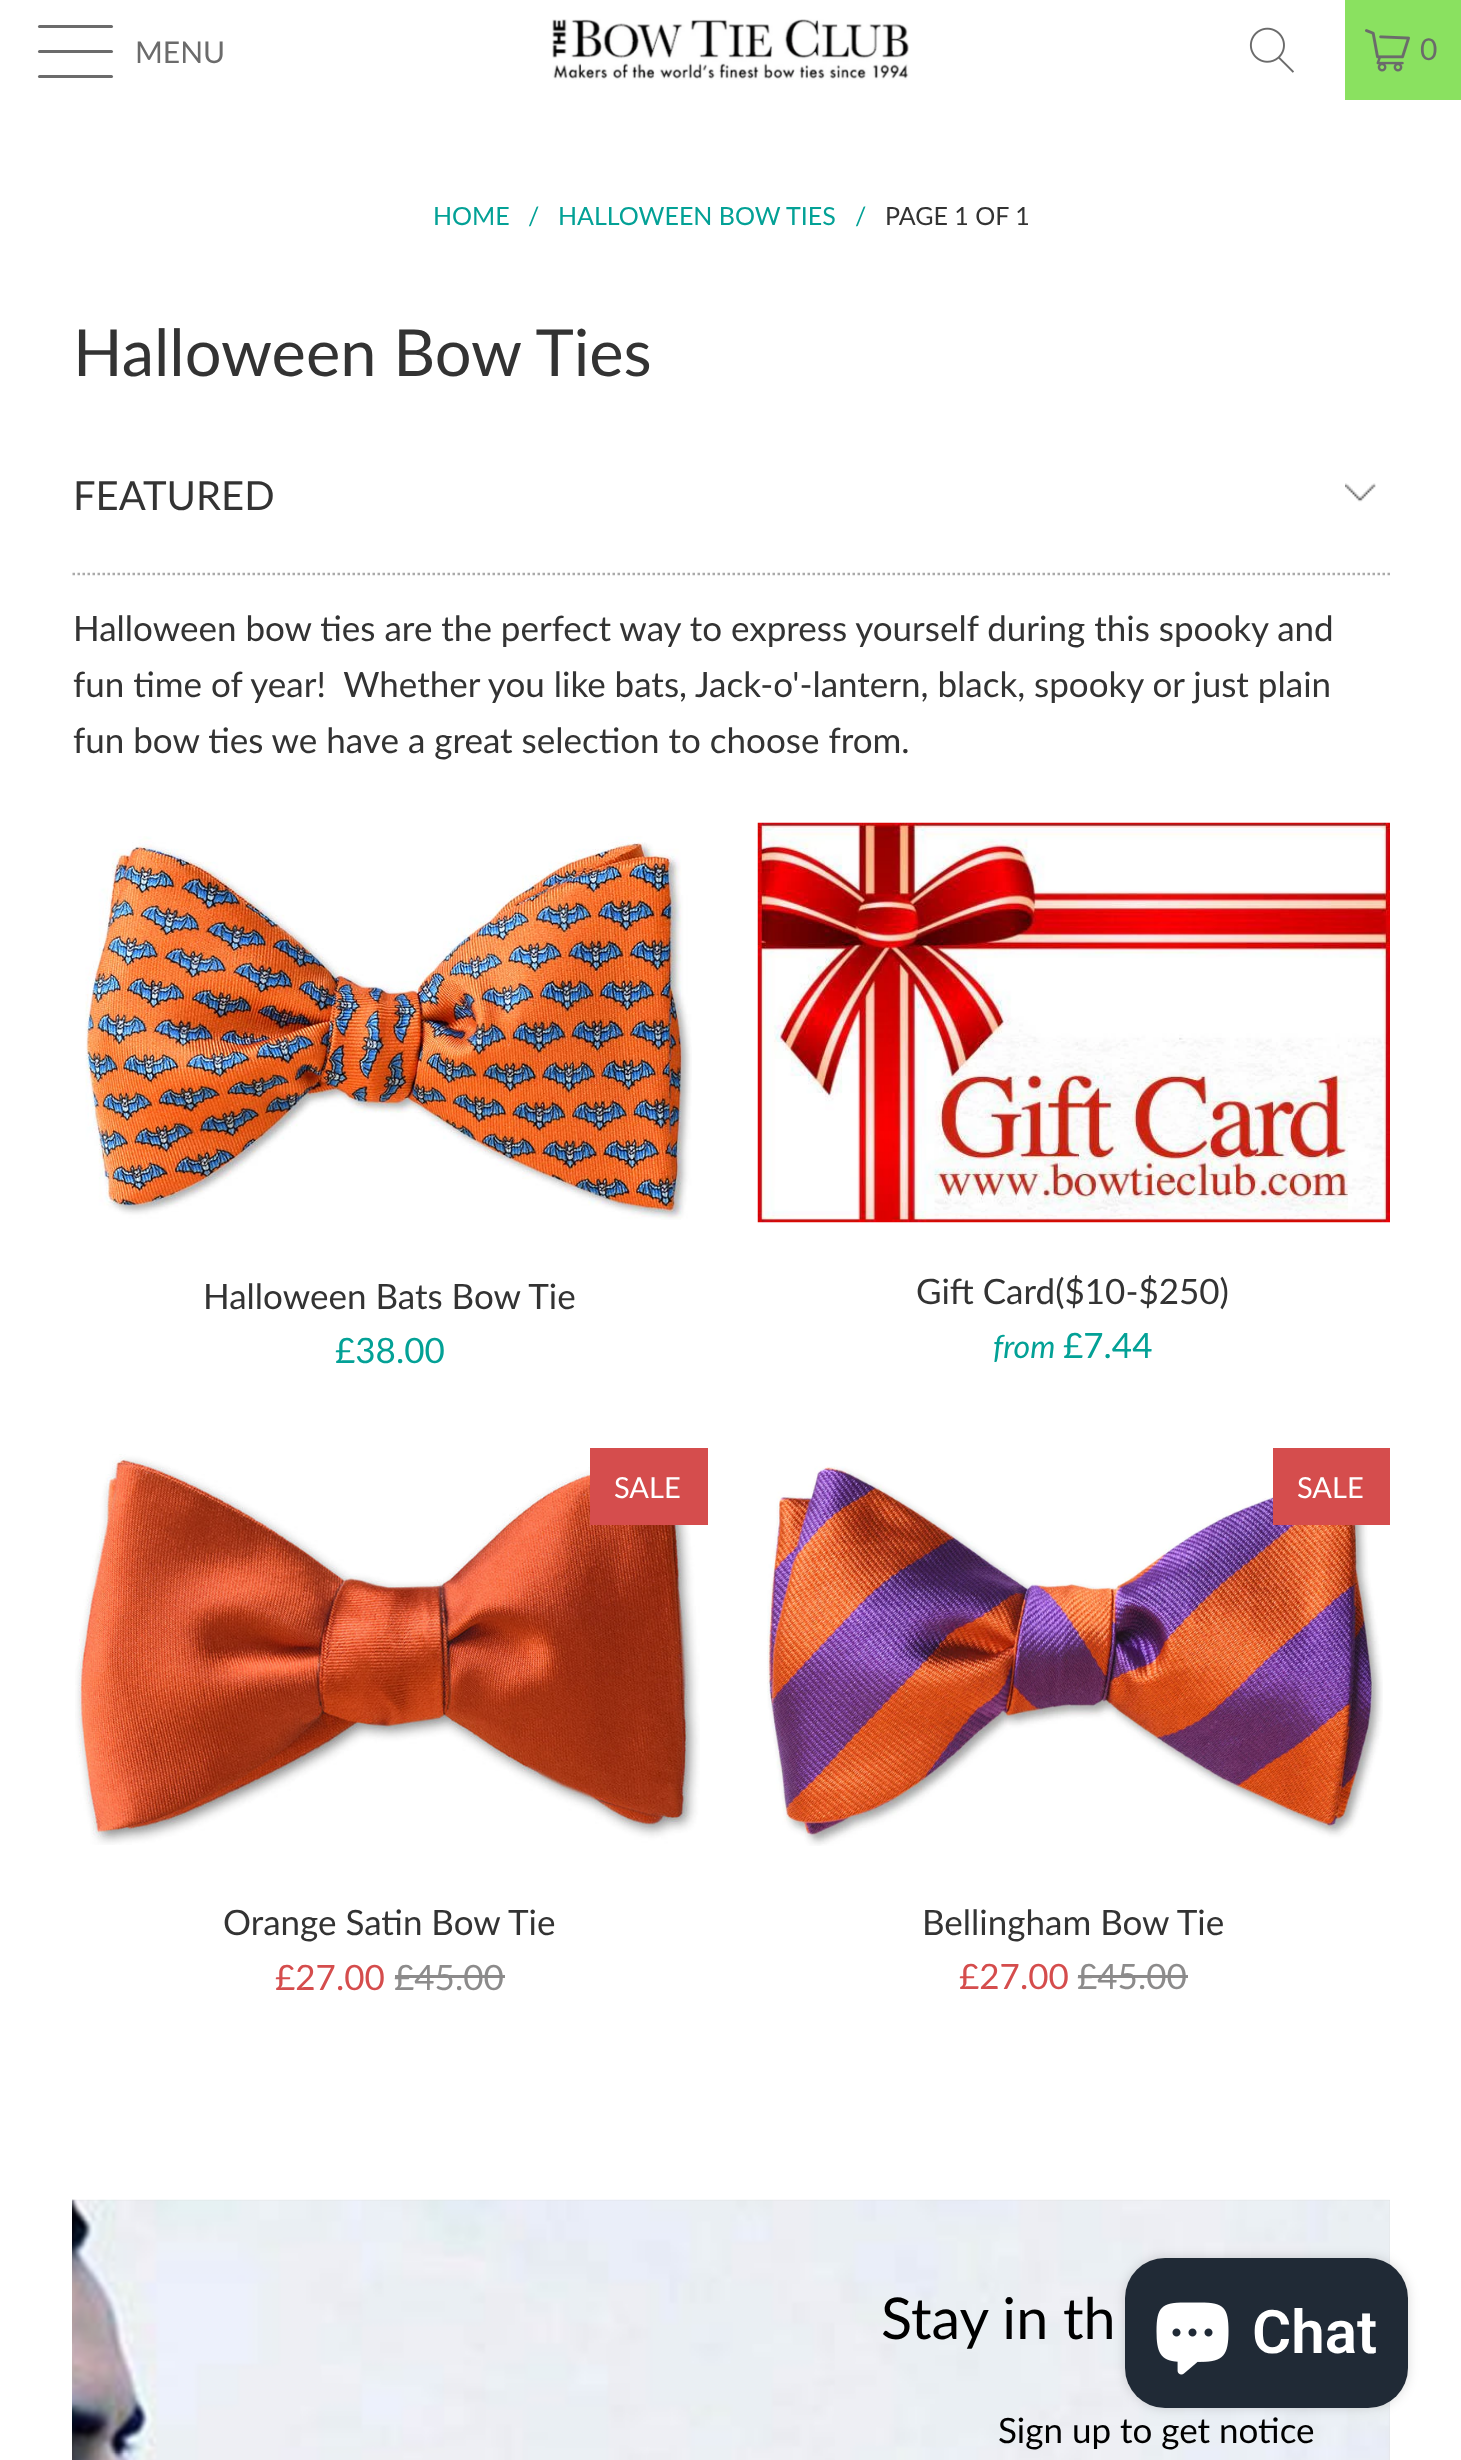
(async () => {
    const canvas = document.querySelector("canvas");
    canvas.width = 1461;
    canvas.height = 2460;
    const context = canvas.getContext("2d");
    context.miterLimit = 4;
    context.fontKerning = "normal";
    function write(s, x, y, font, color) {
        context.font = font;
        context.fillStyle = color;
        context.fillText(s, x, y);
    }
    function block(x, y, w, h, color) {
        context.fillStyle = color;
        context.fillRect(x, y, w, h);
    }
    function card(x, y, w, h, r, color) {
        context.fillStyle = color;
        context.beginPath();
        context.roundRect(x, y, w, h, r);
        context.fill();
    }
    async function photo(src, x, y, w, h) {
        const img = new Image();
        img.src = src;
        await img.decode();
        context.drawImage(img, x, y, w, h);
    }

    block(0, 0, 1461, 2460, "rgb(255, 255, 255)");
    card(38, 25, 75, 3, 1.5, "rgb(107, 107, 107)");
    card(38, 50, 75, 3, 1.5, "rgb(107, 107, 107)");
    card(38, 75, 75, 3, 1.5, "rgb(107, 107, 107)");
    write("MENU", 135, 63, "30px Lato", "rgb(107, 107, 107)");
    await photo("media/1.png", 552, 19, 357, 61);
    await photo("media/2.png", 1249, 27, 45, 46);
    block(1345, 0, 116, 100, "rgb(138, 225, 96)");
    await photo("media/3.png", 1365, 29, 45, 43);
    write("0", 1420, 60, "30px Lato", "rgb(107, 107, 107)");
    write("HOME", 433, 225, "25px Lato", "rgb(3, 161, 150)");
    write("/", 528, 225, "25px Lato", "rgb(3, 161, 150)");
    write("HALLOWEEN BOW TIES", 558, 225, "25px Lato", "rgb(3, 161, 150)");
    write("/", 855, 225, "25px Lato", "rgb(3, 161, 150)");
    write("PAGE 1 OF 1", 885, 225, "25px Lato", "rgb(51, 51, 51)");
    write("Halloween Bow Ties", 73, 376, "65px Lato", "rgb(51, 51, 51)");
    await photo("media/4.png", 1345, 483, 31, 19);
    write("FEATURED", 73, 510, "40px Lato", "rgb(51, 51, 51)");
    context.beginPath();
    context.moveTo(72.5, 574);
    context.lineTo(1390, 574);
    context.strokeStyle = "rgb(170, 170, 170)";
    context.lineWidth = 2.5;
    context.setLineDash([2.5, 2.5]);
    context.stroke();
    write("Halloween bow ties are the perfect way to express yourself during this spooky and", 73, 641, "35px Lato", "rgb(51, 51, 51)");
    write("fun time of year!  Whether you like bats, Jack-o'-lantern, black, spooky or just plain", 73, 697, "35px Lato", "rgb(51, 51, 51)");
    write("fun bow ties we have a great selection to choose from.", 73, 753, "35px Lato", "rgb(51, 51, 51)");
    await photo("media/5.png", 85, 836, 607, 384);
    write("Halloween Bats Bow Tie", 203, 1309, "35px Lato", "rgb(51, 51, 51)");
    write("£38.00", 335, 1363, "35px Lato", "rgb(3, 161, 150)");
    await photo("media/6.png", 757, 822, 633, 401);
    write("Gift Card($10-$250)", 916, 1304, "35px Lato", "rgb(51, 51, 51)");
    write("from", 993, 1358, "italic 32px Lato", "rgb(3, 161, 150)");
    write("£7.44", 1063, 1358, "35px Lato", "rgb(3, 161, 150)");
    await photo("media/7.png", 75, 1454, 625, 391);
    block(590, 1448, 118, 77, "rgb(213, 77, 77)");
    write("SALE", 614, 1498, "29px Lato", "rgb(255, 255, 255)");
    write("Orange Satin Bow Tie", 223, 1935, "35px Lato", "rgb(51, 51, 51)");
    write("£27.00", 275, 1990, "35px Lato", "rgb(213, 77, 77)");
    write("£45.00", 394, 1990, "35px Lato", "rgb(140, 139, 139)");
    block(395, 1975, 110, 3, "rgb(140, 139, 139)");
    await photo("media/8.png", 767, 1466, 616, 380);
    block(1273, 1448, 117, 77, "rgb(213, 77, 77)");
    write("SALE", 1297, 1498, "29px Lato", "rgb(255, 255, 255)");
    write("Bellingham Bow Tie", 922, 1935, "35px Lato", "rgb(51, 51, 51)");
    write("£27.00", 959, 1989, "35px Lato", "rgb(213, 77, 77)");
    write("£45.00", 1077, 1989, "35px Lato", "rgb(140, 139, 139)");
    block(1078, 1975, 110, 3, "rgb(140, 139, 139)");
    block(73, 2200, 1317, 260, "rgb(217, 217, 217)");
    await photo("media/9.png", 72, 2199, 1318, 261);
    write("Stay in th", 881, 2339, "57.5px Lato", "rgb(0, 0, 0)");
    write("Sign up to get notice", 998, 2443, "35px Lato", "rgb(0, 0, 0)");
    context.fillStyle = "rgba(0, 0, 0, 0.15)";
    context.filter = "blur(6px)";
    context.beginPath();
    context.roundRect(1125, 2258, 283, 150, 40);
    context.fill();
    context.filter = "none";
    card(1125, 2258, 283, 150, 40, "rgb(32, 42, 54)");
    await photo("media/10.png", 1156, 2302, 73, 73);
    write("Chat", 1252, 2353, "600 60px Roboto", "rgb(255, 255, 255)");
})();
